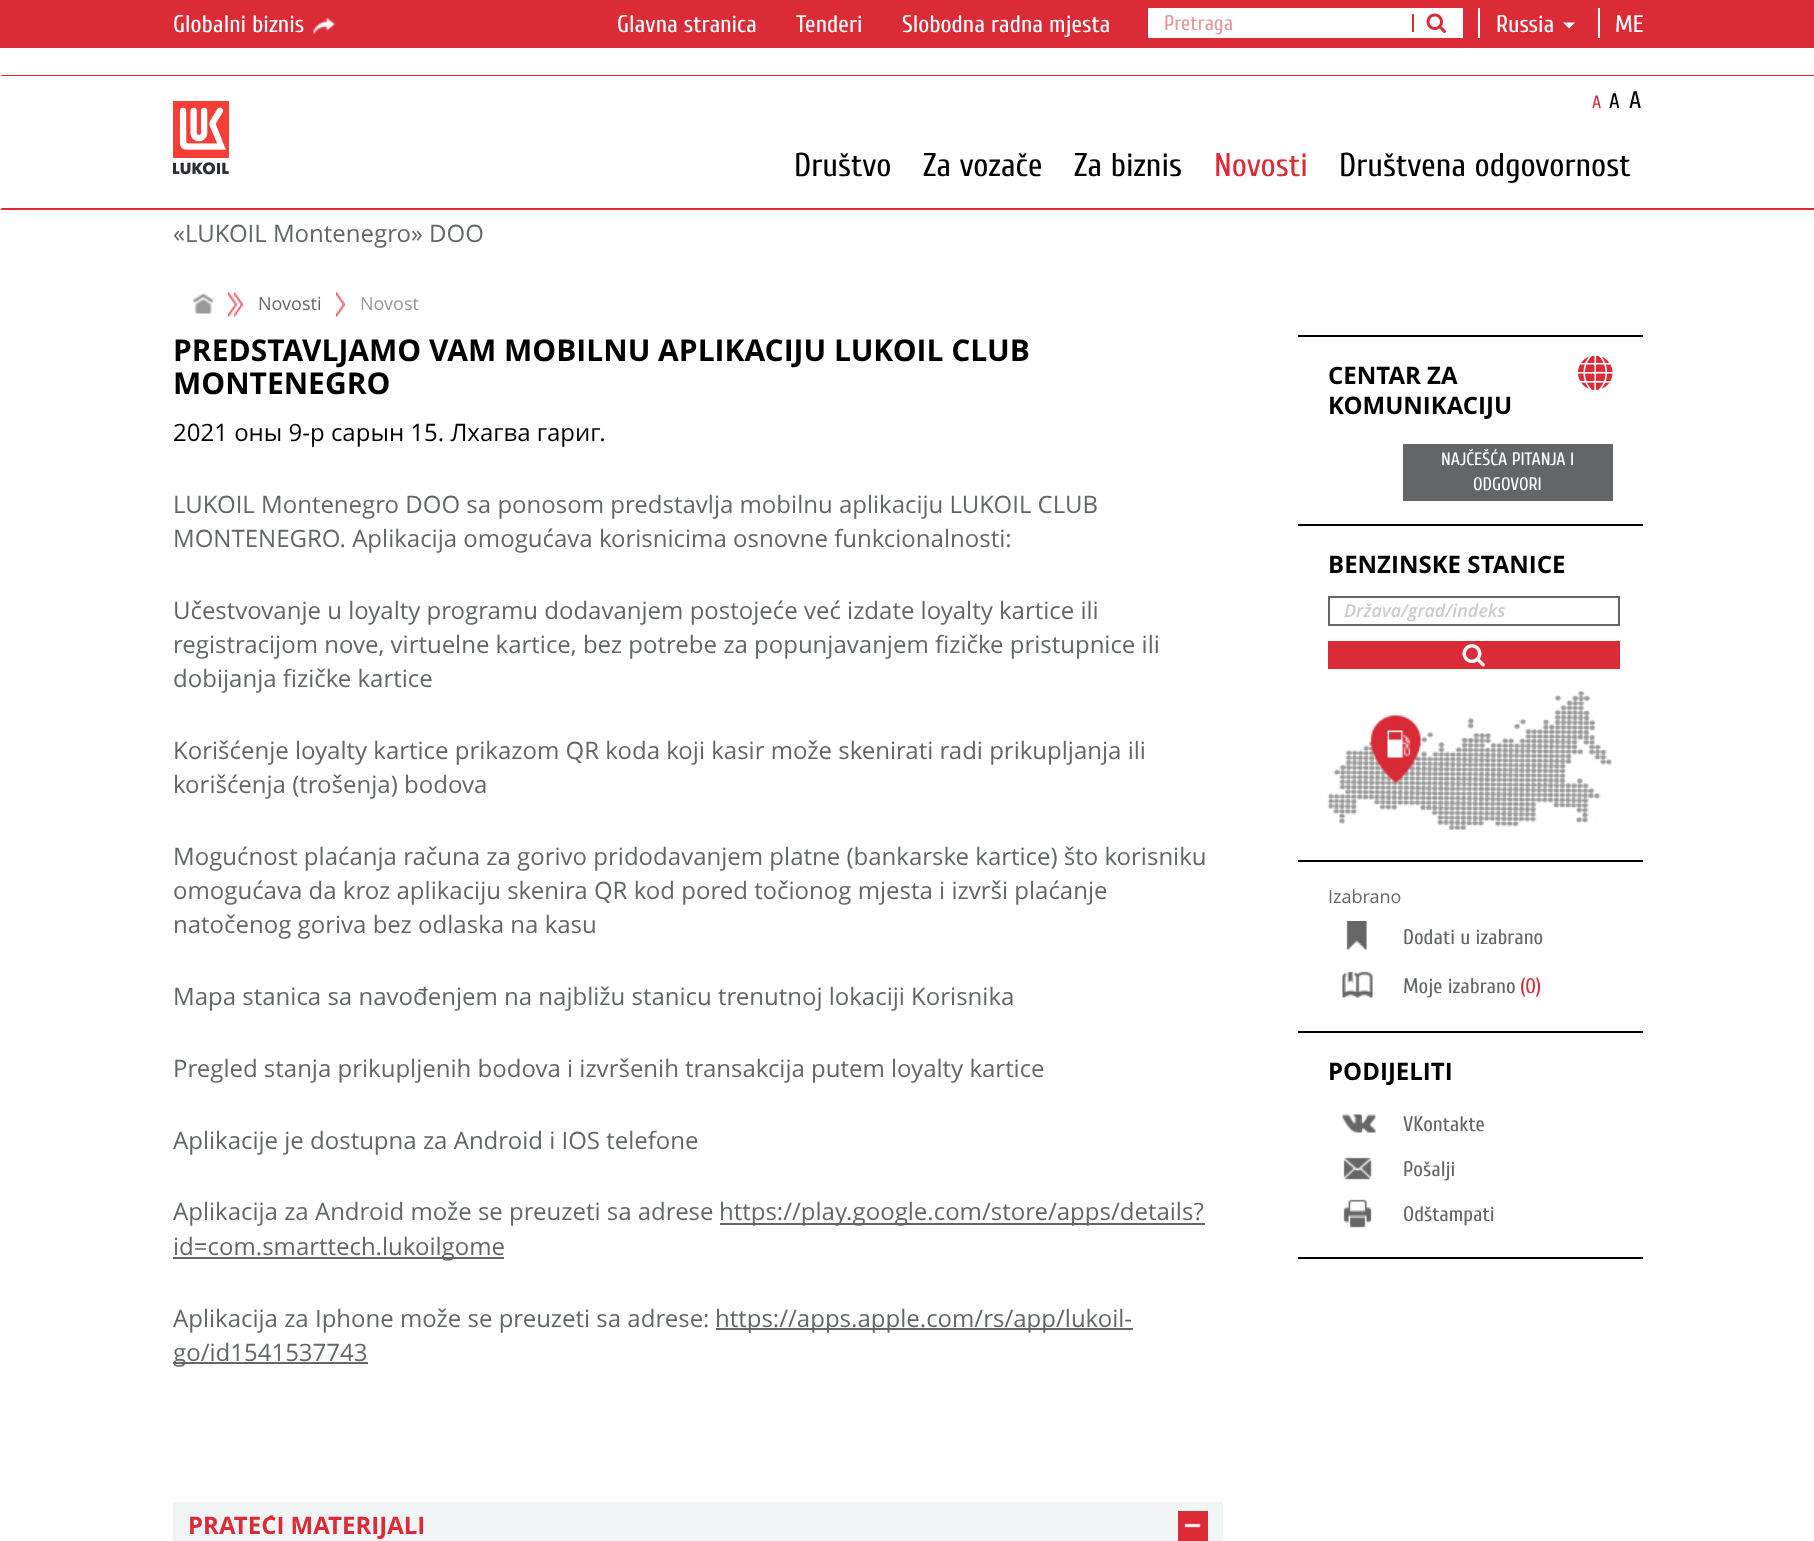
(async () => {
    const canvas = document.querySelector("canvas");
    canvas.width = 1814;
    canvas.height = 1541;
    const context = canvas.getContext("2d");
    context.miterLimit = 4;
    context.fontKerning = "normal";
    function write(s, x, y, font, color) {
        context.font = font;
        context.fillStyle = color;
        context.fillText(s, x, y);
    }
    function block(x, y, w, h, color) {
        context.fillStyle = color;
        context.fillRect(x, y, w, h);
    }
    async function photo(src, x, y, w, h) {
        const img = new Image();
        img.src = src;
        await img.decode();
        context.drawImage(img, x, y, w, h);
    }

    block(0, 0, 1814, 1541, "rgb(255, 255, 255)");
    block(0, 0, 1814, 48, "rgb(219, 43, 54)");
    write("Globalni biznis", 173, 32, "24px Cuprum", "rgb(255, 255, 255)");
    await photo("media/1.png", 313, 17, 22, 18);
    write("Glavna stranica", 617, 32, "24px Cuprum", "rgb(255, 255, 255)");
    write("Tenderi", 796, 32, "24px Cuprum", "rgb(255, 255, 255)");
    write("Slobodna radna mjesta", 902, 32, "24px Cuprum", "rgb(255, 255, 255)");
    block(1148, 8, 315, 30, "rgb(255, 255, 255)");
    block(1412, 14, 2, 18, "rgb(219, 43, 54)");
    await photo("media/2.png", 1426, 13, 20, 20);
    write("Pretraga", 1164, 30, "21px Cuprum", "rgb(232, 149, 155)");
    block(1478, 8, 2, 30, "rgb(255, 255, 255)");
    write("Russia", 1496, 32, "24px Cuprum", "rgb(255, 255, 255)");
    context.beginPath();
    context.moveTo(1563, 22.5);
    context.lineTo(1575, 22.5);
    context.lineTo(1569, 28.5);
    context.closePath();
    context.fill();
    block(1598, 8, 2, 30, "rgb(255, 255, 255)");
    write("ME", 1615, 32, "24px Cuprum", "rgb(255, 255, 255)");
    context.fillStyle = "rgb(219, 43, 54)";
    context.beginPath();
    context.moveTo(0, 75);
    context.lineTo(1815, 75);
    context.lineTo(1814, 76);
    context.lineTo(2, 76);
    context.closePath();
    context.fill();
    context.beginPath();
    context.moveTo(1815, 210);
    context.lineTo(0, 210);
    context.lineTo(2, 208);
    context.lineTo(1814, 208);
    context.closePath();
    context.fill();
    await photo("media/3.png", 173, 101, 56, 74);
    write("A", 1592, 108, "18px Cuprum", "rgb(219, 43, 54)");
    write("A", 1609, 108, "21px Cuprum", "rgb(0, 0, 0)");
    write("A", 1629, 108, "24px Cuprum", "rgb(0, 0, 0)");
    write("Društvo", 794, 176, "33px Cuprum", "rgb(0, 0, 0)");
    write("Za vozače", 923, 176, "33px Cuprum", "rgb(0, 0, 0)");
    write("Za biznis", 1074, 176, "33px Cuprum", "rgb(0, 0, 0)");
    write("Novosti", 1214, 176, "33px Cuprum", "rgb(219, 43, 54)");
    write("Društvena odgovornost", 1339, 176, "33px Cuprum", "rgb(0, 0, 0)");
    write("«LUKOIL Montenegro» DOO", 173, 242, "24px Open Sans", "rgb(99, 102, 103)");
    await photo("media/4.png", 193, 293, 21, 21);
    await photo("media/5.png", 228, 291, 15, 26);
    write("Novosti", 258, 310, "18px Open Sans", "rgb(99, 102, 103)");
    await photo("media/6.png", 336, 291, 9, 26);
    write("Novost", 360, 310, "18px Open Sans", "rgb(152, 152, 152)");
    write("PREDSTAVLJAMO VAM MOBILNU APLIKACIJU LUKOIL CLUB", 173, 361, "bold 30px Open Sans", "rgb(0, 0, 0)");
    write("MONTENEGRO", 173, 394, "bold 30px Open Sans", "rgb(0, 0, 0)");
    write("2021 оны 9-р сарын 15. Лхагва гариг.", 173, 441, "24px Open Sans", "rgb(0, 0, 0)");
    write("LUKOIL Montenegro DOO sa ponosom predstavlja mobilnu aplikaciju LUKOIL CLUB", 173, 513, "24px Open Sans", "rgb(99, 102, 103)");
    write("MONTENEGRO. Aplikacija omogućava korisnicima osnovne funkcionalnosti:", 173, 547, "24px Open Sans", "rgb(99, 102, 103)");
    write("Učestvovanje u loyalty programu dodavanjem postojeće već izdate loyalty kartice ili", 173, 619, "24px Open Sans", "rgb(99, 102, 103)");
    write("registracijom nove, virtuelne kartice, bez potrebe za popunjavanjem fizičke pristupnice ili", 173, 653, "24px Open Sans", "rgb(99, 102, 103)");
    write("dobijanja fizičke kartice", 173, 687, "24px Open Sans", "rgb(99, 102, 103)");
    write("Korišćenje loyalty kartice prikazom QR koda koji kasir može skenirati radi prikupljanja ili", 173, 759, "24px Open Sans", "rgb(99, 102, 103)");
    write("korišćenja (trošenja) bodova", 173, 793, "24px Open Sans", "rgb(99, 102, 103)");
    write("Mogućnost plaćanja računa za gorivo pridodavanjem platne (bankarske kartice) što korisniku", 173, 865, "24px Open Sans", "rgb(99, 102, 103)");
    write("omogućava da kroz aplikaciju skenira QR kod pored točionog mjesta i izvrši plaćanje", 173, 899, "24px Open Sans", "rgb(99, 102, 103)");
    write("natočenog goriva bez odlaska na kasu", 173, 933, "24px Open Sans", "rgb(99, 102, 103)");
    write("Mapa stanica sa navođenjem na najbližu stanicu trenutnoj lokaciji Korisnika", 173, 1005, "24px Open Sans", "rgb(99, 102, 103)");
    write("Pregled stanja prikupljenih bodova i izvršenih transakcija putem loyalty kartice", 173, 1077, "24px Open Sans", "rgb(99, 102, 103)");
    write("Aplikacije je dostupna za Android i IOS telefone", 173, 1149, "24px Open Sans", "rgb(99, 102, 103)");
    write("Aplikacija za Android može se preuzeti sa adrese", 173, 1220, "24px Open Sans", "rgb(99, 102, 103)");
    block(720, 1223, 485, 2, "rgb(102, 102, 102)");
    write("https://play.google.com/store/apps/details?", 719, 1220, "24px Open Sans", "rgb(99, 102, 103)");
    block(173, 1257, 331, 2, "rgb(102, 102, 102)");
    write("id=com.smarttech.lukoilgome", 173, 1255, "24px Open Sans", "rgb(99, 102, 103)");
    write("Aplikacija za Iphone može se preuzeti sa adrese:", 173, 1327, "24px Open Sans", "rgb(99, 102, 103)");
    block(716, 1328, 417, 2, "rgb(102, 102, 102)");
    write("https://apps.apple.com/rs/app/lukoil-", 715, 1327, "24px Open Sans", "rgb(99, 102, 103)");
    block(173, 1362, 195, 2, "rgb(102, 102, 102)");
    write("go/id1541537743", 173, 1361, "24px Open Sans", "rgb(99, 102, 103)");
    context.strokeStyle = "rgb(241, 244, 245)";
    context.lineWidth = 2;
    context.strokeRect(174, 1503, 1048, 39);
    block(175, 1504, 1046, 37, "rgb(241, 244, 245)");
    write("PRATEĆI MATERIJALI", 188, 1534, "bold 24px Open Sans", "rgb(219, 43, 54)");
    block(1178, 1511, 30, 30, "rgb(219, 43, 54)");
    await photo("media/7.png", 1184, 1523, 17, 5);
    block(1298, 335, 345, 2, "rgb(0, 0, 0)");
    block(1298, 524, 345, 2, "rgb(0, 0, 0)");
    write("CENTAR ZA", 1328, 384, "bold 24px Open Sans", "rgb(0, 0, 0)");
    await photo("media/8.png", 1578, 356, 35, 34);
    write("KOMUNIKACIJU", 1328, 414, "bold 24px Open Sans", "rgb(0, 0, 0)");
    block(1403, 444, 210, 57, "rgb(99, 102, 103)");
    write("NAJČEŠĆA PITANJA I", 1441, 465, "18px Cuprum", "rgb(255, 255, 255)");
    write("ODGOVORI", 1473, 490, "18px Cuprum", "rgb(255, 255, 255)");
    block(1298, 860, 345, 2, "rgb(0, 0, 0)");
    write("BENZINSKE STANICE", 1328, 573, "bold 24px Open Sans", "rgb(0, 0, 0)");
    context.strokeStyle = "rgb(102, 102, 102)";
    context.strokeRect(1329, 597, 290, 28);
    write("Država/grad/indeks", 1344, 617, "italic 600 18px Open Sans", "rgb(204, 204, 204)");
    block(1328, 641, 292, 28, "rgb(219, 43, 54)");
    await photo("media/9.png", 1462, 644, 23, 23);
    await photo("media/10.png", 1327, 691, 285, 139);
    block(1298, 1031, 345, 2, "rgb(0, 0, 0)");
    write("Izabrano", 1328, 903, "18px Open Sans", "rgb(99, 102, 103)");
    await photo("media/11.png", 1346, 921, 21, 29);
    write("Dodati u izabrano", 1403, 944, "21px Cuprum", "rgb(99, 102, 103)");
    await photo("media/12.png", 1342, 971, 31, 27);
    write("Moje izabrano", 1403, 993, "21px Cuprum", "rgb(99, 102, 103)");
    write("(0)", 1520, 993, "21px Cuprum", "rgb(219, 43, 54)");
    block(1298, 1257, 345, 2, "rgb(0, 0, 0)");
    write("PODIJELITI", 1328, 1080, "bold 24px Open Sans", "rgb(0, 0, 0)");
    await photo("media/13.png", 1342, 1114, 34, 19);
    write("VKontakte", 1403, 1131, "21px Cuprum", "rgb(99, 102, 103)");
    await photo("media/14.png", 1343, 1157, 29, 23);
    write("Pošalji", 1403, 1176, "21px Cuprum", "rgb(99, 102, 103)");
    await photo("media/15.png", 1343, 1199, 29, 29);
    write("Odštampati", 1403, 1221, "21px Cuprum", "rgb(99, 102, 103)");
})();
